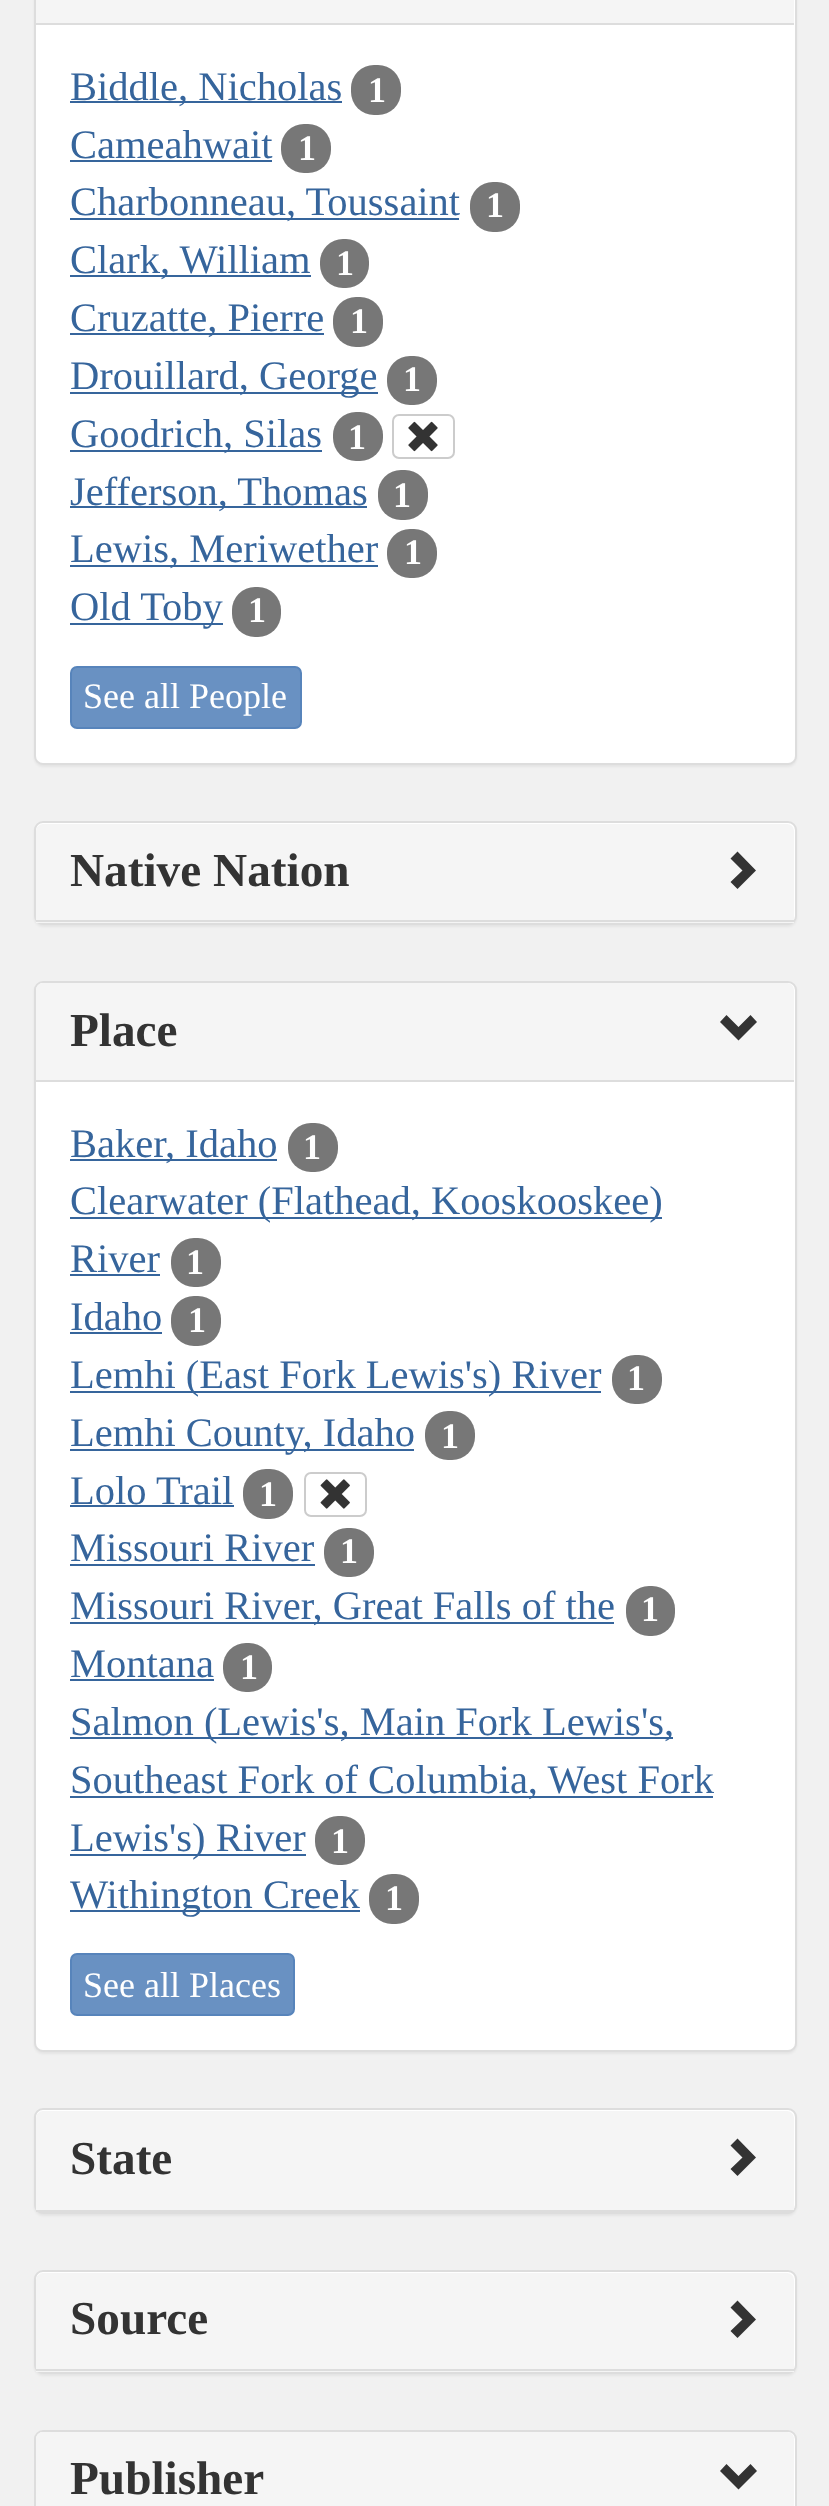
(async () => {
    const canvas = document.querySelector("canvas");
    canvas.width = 829;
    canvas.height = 2506;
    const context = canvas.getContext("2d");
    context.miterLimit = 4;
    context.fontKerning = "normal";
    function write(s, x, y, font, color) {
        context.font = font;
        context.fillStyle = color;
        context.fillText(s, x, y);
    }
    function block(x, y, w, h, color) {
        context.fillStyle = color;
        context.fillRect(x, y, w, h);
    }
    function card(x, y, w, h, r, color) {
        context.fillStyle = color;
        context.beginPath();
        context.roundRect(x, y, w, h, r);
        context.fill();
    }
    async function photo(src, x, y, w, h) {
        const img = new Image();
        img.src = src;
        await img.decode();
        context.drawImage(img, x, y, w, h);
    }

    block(0, 0, 829, 2506, "rgb(241, 241, 241)");
    context.fillStyle = "rgba(0, 0, 0, 0.05)";
    context.filter = "blur(1px)";
    context.beginPath();
    context.roundRect(34, -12, 763, 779, 9);
    context.fill();
    context.filter = "none";
    context.fillStyle = "rgb(255, 255, 255)";
    context.beginPath();
    context.roundRect(35, -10, 761, 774, 8);
    context.fill();
    context.strokeStyle = "rgb(221, 221, 221)";
    context.lineWidth = 2;
    context.stroke();
    block(36, 0, 758, 23, "rgb(245, 245, 245)");
    block(36, 23, 758, 2, "rgb(221, 221, 221)");
    block(70, 101, 272, 2, "rgb(54, 101, 156)");
    write("Biddle, Nicholas", 70, 100, "40.5px Liberation Serif", "rgb(54, 101, 156)");
    card(351, 65, 50, 50, 23, "rgb(119, 119, 119)");
    write("1", 368, 102, "bold 36px Liberation Serif", "rgb(255, 255, 255)");
    write("Cameahwait", 70, 158, "40.5px Liberation Serif", "rgb(54, 101, 156)");
    block(70, 160, 202, 2, "rgb(54, 101, 156)");
    card(281, 124, 50, 49, 23, "rgb(119, 119, 119)");
    write("1", 298, 160, "bold 36px Liberation Serif", "rgb(255, 255, 255)");
    block(70, 218, 389, 2, "rgb(54, 101, 156)");
    write("Charbonneau, Toussaint", 70, 215, "40.5px Liberation Serif", "rgb(54, 101, 156)");
    card(470, 182, 50, 50, 23, "rgb(119, 119, 119)");
    write("1", 486, 217, "bold 36px Liberation Serif", "rgb(255, 255, 255)");
    block(70, 275, 241, 2, "rgb(54, 101, 156)");
    write("Clark, William", 70, 273, "40.5px Liberation Serif", "rgb(54, 101, 156)");
    card(320, 239, 49, 49, 23, "rgb(119, 119, 119)");
    write("1", 336, 275, "bold 36px Liberation Serif", "rgb(255, 255, 255)");
    block(70, 333, 254, 2, "rgb(54, 101, 156)");
    write("Cruzatte, Pierre", 70, 331, "40.5px Liberation Serif", "rgb(54, 101, 156)");
    card(333, 297, 50, 50, 23, "rgb(119, 119, 119)");
    write("1", 350, 333, "bold 36px Liberation Serif", "rgb(255, 255, 255)");
    block(70, 392, 308, 2, "rgb(54, 101, 156)");
    write("Drouillard, George", 70, 389, "40.5px Liberation Serif", "rgb(54, 101, 156)");
    card(387, 356, 50, 49, 23, "rgb(119, 119, 119)");
    write("1", 403, 391, "bold 36px Liberation Serif", "rgb(255, 255, 255)");
    block(70, 450, 252, 2, "rgb(54, 101, 156)");
    write("Goodrich, Silas", 70, 447, "40.5px Liberation Serif", "rgb(54, 101, 156)");
    card(333, 412, 50, 49, 23, "rgb(119, 119, 119)");
    write("1", 348, 449, "bold 36px Liberation Serif", "rgb(255, 255, 255)");
    context.beginPath();
    context.roundRect(393, 415, 61, 43, 6);
    context.strokeStyle = "rgb(204, 204, 204)";
    context.stroke();
    await photo("media/1.png", 408, 421, 30, 31);
    block(70, 506, 297, 2, "rgb(54, 101, 156)");
    write("Jefferson, Thomas", 70, 505, "40.5px Liberation Serif", "rgb(54, 101, 156)");
    card(378, 470, 50, 50, 23, "rgb(119, 119, 119)");
    write("1", 393, 507, "bold 36px Liberation Serif", "rgb(255, 255, 255)");
    block(70, 565, 308, 2, "rgb(54, 101, 156)");
    write("Lewis, Meriwether", 70, 562, "40.5px Liberation Serif", "rgb(54, 101, 156)");
    card(387, 529, 50, 49, 23, "rgb(119, 119, 119)");
    write("1", 404, 564, "bold 36px Liberation Serif", "rgb(255, 255, 255)");
    block(70, 623, 153, 2, "rgb(54, 101, 156)");
    write("Old Toby", 70, 620, "40.5px Liberation Serif", "rgb(54, 101, 156)");
    card(232, 587, 49, 50, 23, "rgb(119, 119, 119)");
    write("1", 248, 622, "bold 36px Liberation Serif", "rgb(255, 255, 255)");
    context.fillStyle = "rgb(105, 145, 194)";
    context.beginPath();
    context.roundRect(71, 667, 230, 61, 6);
    context.fill();
    context.strokeStyle = "rgb(87, 132, 187)";
    context.stroke();
    write("See all People", 83, 708, "36px Liberation Serif", "rgb(255, 255, 255)");
    context.fillStyle = "rgba(0, 0, 0, 0.05)";
    context.filter = "blur(1px)";
    context.beginPath();
    context.roundRect(34, 824, 763, 103, 9);
    context.fill();
    context.filter = "none";
    context.fillStyle = "rgb(255, 255, 255)";
    context.beginPath();
    context.roundRect(35, 822, 761, 102, 8);
    context.fill();
    context.strokeStyle = "rgb(221, 221, 221)";
    context.stroke();
    context.fillStyle = "rgb(245, 245, 245)";
    context.beginPath();
    context.roundRect(36, 824, 758, 99, [7, 7, 0, 0]);
    context.fill();
    block(36, 920, 758, 2, "rgb(221, 221, 221)");
    write("Native Nation", 70, 886, "bold 47.25px Liberation Serif", "rgb(51, 51, 51)");
    context.beginPath();
    context.moveTo(756, 870.5);
    context.lineTo(737.5, 889);
    context.lineTo(730.5, 882);
    context.lineTo(742.5, 870.5);
    context.lineTo(730.5, 858.5);
    context.lineTo(737.5, 851.5);
    context.closePath();
    context.fill();
    context.fillStyle = "rgba(0, 0, 0, 0.05)";
    context.filter = "blur(1px)";
    context.beginPath();
    context.roundRect(34, 983, 763, 1071, 9);
    context.fill();
    context.filter = "none";
    context.fillStyle = "rgb(255, 255, 255)";
    context.beginPath();
    context.roundRect(35, 982, 761, 1069, 8);
    context.fill();
    context.stroke();
    context.fillStyle = "rgb(245, 245, 245)";
    context.beginPath();
    context.roundRect(36, 983, 758, 99, [7, 7, 0, 0]);
    context.fill();
    block(36, 1080, 758, 2, "rgb(221, 221, 221)");
    write("Place", 70, 1046, "bold 47.25px Liberation Serif", "rgb(51, 51, 51)");
    context.beginPath();
    context.moveTo(757, 1022);
    context.lineTo(738.5, 1040.5);
    context.lineTo(720, 1022);
    context.lineTo(726.5, 1015);
    context.lineTo(738.5, 1027);
    context.lineTo(750.5, 1015);
    context.closePath();
    context.fill();
    block(70, 1159, 207, 2, "rgb(54, 101, 156)");
    write("Baker, Idaho", 70, 1157, "40.5px Liberation Serif", "rgb(54, 101, 156)");
    card(288, 1123, 50, 49, 23, "rgb(119, 119, 119)");
    write("1", 303, 1159, "bold 36px Liberation Serif", "rgb(255, 255, 255)");
    block(70, 1217, 592, 2, "rgb(54, 101, 156)");
    write("Clearwater (Flathead, Kooskooskee)", 70, 1214, "40.5px Liberation Serif", "rgb(54, 101, 156)");
    write("River", 70, 1272, "40.5px Liberation Serif", "rgb(54, 101, 156)");
    block(70, 1274, 90, 2, "rgb(54, 101, 156)");
    card(171, 1238, 50, 49, 23, "rgb(119, 119, 119)");
    write("1", 186, 1274, "bold 36px Liberation Serif", "rgb(255, 255, 255)");
    write("Idaho", 70, 1330, "40.5px Liberation Serif", "rgb(54, 101, 156)");
    block(70, 1332, 92, 2, "rgb(54, 101, 156)");
    card(171, 1296, 50, 50, 23, "rgb(119, 119, 119)");
    write("1", 188, 1332, "bold 36px Liberation Serif", "rgb(255, 255, 255)");
    block(70, 1391, 531, 2, "rgb(54, 101, 156)");
    write("Lemhi (East Fork Lewis's) River", 70, 1388, "40.5px Liberation Serif", "rgb(54, 101, 156)");
    card(612, 1355, 50, 49, 23, "rgb(119, 119, 119)");
    write("1", 627, 1390, "bold 36px Liberation Serif", "rgb(255, 255, 255)");
    block(70, 1449, 344, 2, "rgb(54, 101, 156)");
    write("Lemhi County, Idaho", 70, 1446, "40.5px Liberation Serif", "rgb(54, 101, 156)");
    card(425, 1411, 50, 49, 23, "rgb(119, 119, 119)");
    write("1", 441, 1448, "bold 36px Liberation Serif", "rgb(255, 255, 255)");
    write("Lolo Trail", 70, 1504, "40.5px Liberation Serif", "rgb(54, 101, 156)");
    block(70, 1505, 164, 2, "rgb(54, 101, 156)");
    card(243, 1469, 50, 50, 23, "rgb(119, 119, 119)");
    write("1", 259, 1506, "bold 36px Liberation Serif", "rgb(255, 255, 255)");
    context.beginPath();
    context.roundRect(305, 1473, 61, 43, 6);
    context.strokeStyle = "rgb(204, 204, 204)";
    context.stroke();
    await photo("media/2.png", 320, 1479, 30, 30);
    write("Missouri River", 70, 1561, "40.5px Liberation Serif", "rgb(54, 101, 156)");
    block(70, 1564, 245, 2, "rgb(54, 101, 156)");
    card(324, 1528, 50, 49, 23, "rgb(119, 119, 119)");
    write("1", 340, 1563, "bold 36px Liberation Serif", "rgb(255, 255, 255)");
    block(70, 1622, 544, 2, "rgb(54, 101, 156)");
    write("Missouri River, Great Falls of the", 70, 1619, "40.5px Liberation Serif", "rgb(54, 101, 156)");
    card(626, 1586, 49, 50, 23, "rgb(119, 119, 119)");
    write("1", 641, 1621, "bold 36px Liberation Serif", "rgb(255, 255, 255)");
    write("Montana", 70, 1677, "40.5px Liberation Serif", "rgb(54, 101, 156)");
    block(70, 1679, 144, 2, "rgb(54, 101, 156)");
    card(223, 1643, 49, 49, 23, "rgb(119, 119, 119)");
    write("1", 240, 1679, "bold 36px Liberation Serif", "rgb(255, 255, 255)");
    block(70, 1737, 603, 2, "rgb(54, 101, 156)");
    write("Salmon (Lewis's, Main Fork Lewis's,", 70, 1735, "40.5px Liberation Serif", "rgb(54, 101, 156)");
    block(70, 1796, 643, 2, "rgb(54, 101, 156)");
    write("Southeast Fork of Columbia, West Fork", 70, 1793, "40.5px Liberation Serif", "rgb(54, 101, 156)");
    block(70, 1854, 236, 2, "rgb(54, 101, 156)");
    write("Lewis's) River", 70, 1851, "40.5px Liberation Serif", "rgb(54, 101, 156)");
    card(315, 1816, 50, 49, 23, "rgb(119, 119, 119)");
    write("1", 331, 1853, "bold 36px Liberation Serif", "rgb(255, 255, 255)");
    block(70, 1910, 290, 2, "rgb(54, 101, 156)");
    write("Withington Creek", 70, 1908, "40.5px Liberation Serif", "rgb(54, 101, 156)");
    card(369, 1874, 50, 50, 23, "rgb(119, 119, 119)");
    write("1", 385, 1910, "bold 36px Liberation Serif", "rgb(255, 255, 255)");
    context.fillStyle = "rgb(105, 145, 194)";
    context.beginPath();
    context.roundRect(71, 1954, 223, 61, 6);
    context.fill();
    context.strokeStyle = "rgb(87, 132, 187)";
    context.stroke();
    write("See all Places", 83, 1997, "36px Liberation Serif", "rgb(255, 255, 255)");
    context.fillStyle = "rgba(0, 0, 0, 0.05)";
    context.filter = "blur(1px)";
    context.beginPath();
    context.roundRect(34, 2111, 763, 105, 9);
    context.fill();
    context.filter = "none";
    context.fillStyle = "rgb(255, 255, 255)";
    context.beginPath();
    context.roundRect(35, 2109, 761, 104, 8);
    context.fill();
    context.strokeStyle = "rgb(221, 221, 221)";
    context.stroke();
    context.fillStyle = "rgb(245, 245, 245)";
    context.beginPath();
    context.roundRect(36, 2111, 758, 101, [7, 7, 0, 0]);
    context.fill();
    block(36, 2210, 758, 2, "rgb(221, 221, 221)");
    write("State", 70, 2174, "bold 47.25px Liberation Serif", "rgb(51, 51, 51)");
    context.beginPath();
    context.moveTo(756, 2157.5);
    context.lineTo(737.5, 2176);
    context.lineTo(730.5, 2169);
    context.lineTo(742.5, 2157.5);
    context.lineTo(730.5, 2145.5);
    context.lineTo(737.5, 2138.5);
    context.closePath();
    context.fill();
    context.fillStyle = "rgba(0, 0, 0, 0.05)";
    context.filter = "blur(1px)";
    context.beginPath();
    context.roundRect(34, 2273, 763, 103, 9);
    context.fill();
    context.filter = "none";
    context.fillStyle = "rgb(255, 255, 255)";
    context.beginPath();
    context.roundRect(35, 2271, 761, 102, 8);
    context.fill();
    context.stroke();
    context.fillStyle = "rgb(245, 245, 245)";
    context.beginPath();
    context.roundRect(36, 2273, 758, 99, [7, 7, 0, 0]);
    context.fill();
    block(36, 2369, 758, 2, "rgb(221, 221, 221)");
    write("Source", 70, 2334, "bold 47.25px Liberation Serif", "rgb(51, 51, 51)");
    context.beginPath();
    context.moveTo(756, 2319.5);
    context.lineTo(737.5, 2338);
    context.lineTo(730.5, 2331);
    context.lineTo(742.5, 2319.5);
    context.lineTo(730.5, 2307.5);
    context.lineTo(737.5, 2300.5);
    context.closePath();
    context.fill();
    context.fillStyle = "rgb(255, 255, 255)";
    context.beginPath();
    context.roundRect(35, 2431, 761, 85, 8);
    context.fill();
    context.stroke();
    context.fillStyle = "rgb(245, 245, 245)";
    context.beginPath();
    context.moveTo(43, 2432);
    context.lineTo(787, 2432);
    context.bezierCurveTo(791, 2432, 794, 2435, 794, 2439);
    context.lineTo(794, 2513);
    context.lineTo(36, 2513);
    context.lineTo(36, 2439);
    context.bezierCurveTo(36, 2435, 39, 2432, 43, 2432);
    context.closePath();
    context.fill();
    write("Publisher", 70, 2494, "bold 47.25px Liberation Serif", "rgb(51, 51, 51)");
    context.beginPath();
    context.moveTo(757, 2471);
    context.lineTo(738.5, 2489.5);
    context.lineTo(720, 2471);
    context.lineTo(726.5, 2464);
    context.lineTo(738.5, 2476);
    context.lineTo(750.5, 2464);
    context.closePath();
    context.fill();
})();
